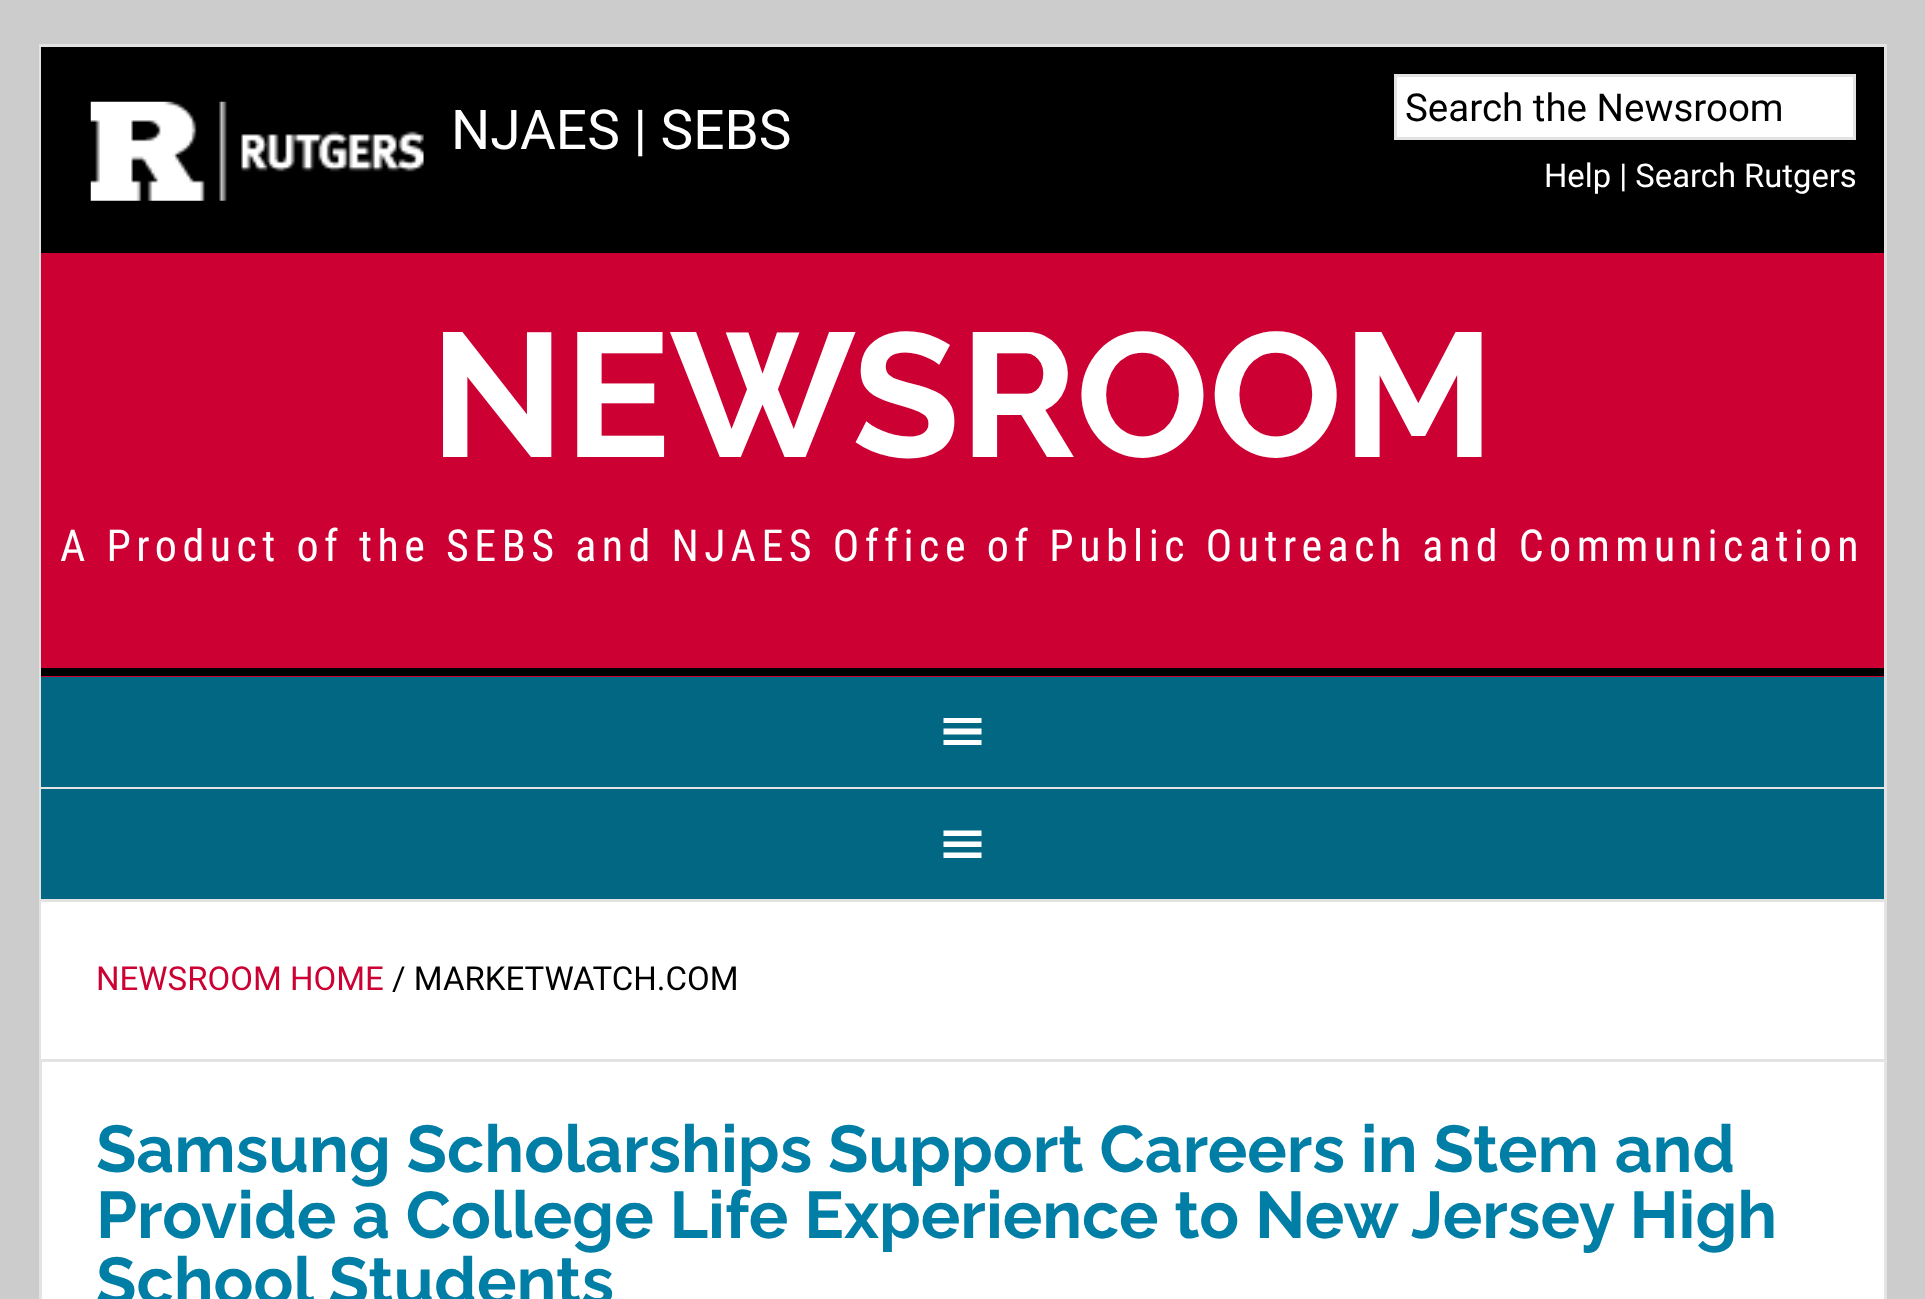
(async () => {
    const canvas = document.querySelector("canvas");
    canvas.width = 1925;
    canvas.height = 1299;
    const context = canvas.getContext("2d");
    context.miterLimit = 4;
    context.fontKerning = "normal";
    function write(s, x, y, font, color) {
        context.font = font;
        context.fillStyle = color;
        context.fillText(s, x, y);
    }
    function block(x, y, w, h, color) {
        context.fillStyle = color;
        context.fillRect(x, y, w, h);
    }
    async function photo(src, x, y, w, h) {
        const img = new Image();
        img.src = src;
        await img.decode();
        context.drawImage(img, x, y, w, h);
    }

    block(0, 0, 1925, 1299, "rgb(204, 204, 204)");
    block(42, 1062, 1842, 237, "rgb(255, 255, 255)");
    context.strokeStyle = "rgb(227, 227, 227)";
    context.lineWidth = 3;
    context.strokeRect(40.5, 45.5, 1845, 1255);
    block(41, 47, 1843, 206, "rgb(0, 0, 0)");
    await photo("media/1.png", 90, 101, 334, 100);
    write("NJAES | SEBS", 451, 149, "55px Roboto", "rgb(255, 255, 255)");
    context.beginPath();
    context.rect(1395.5, 75.5, 459, 63);
    context.fill();
    context.stroke();
    write("Search the Newsroom", 1405, 121, "38.5px Roboto", "rgb(0, 0, 0)");
    write("Help | Search Rutgers", 1544, 187, "32.75px Roboto", "rgb(255, 255, 255)");
    block(41, 253, 1843, 424, "rgb(204, 0, 51)");
    block(41, 668, 1843, 8, "rgb(0, 0, 0)");
    write("NEWSROOM", 430, 457, "bold 176px Raleway", "rgb(255, 255, 255)");
    context.letterSpacing = "5.5px";
    write("A Product of the SEBS and NJAES Office of Public Outreach and Communication", 60, 561, "44px Roboto Condensed", "rgb(255, 255, 255)");
    block(41, 677, 1843, 110, "rgb(2, 103, 131)");
    block(41, 787, 1843, 2, "rgb(227, 227, 227)");
    context.fillStyle = "rgb(255, 255, 255)";
    context.beginPath();
    context.moveTo(943.5, 745);
    context.lineTo(981.5, 745);
    context.lineTo(981.5, 740);
    context.lineTo(943.5, 740);
    context.closePath();
    context.moveTo(943.5, 718);
    context.lineTo(943.5, 723);
    context.lineTo(981.5, 723);
    context.lineTo(981.5, 718);
    context.closePath();
    context.moveTo(943.5, 734.5);
    context.lineTo(981.5, 734.5);
    context.lineTo(981.5, 728.5);
    context.lineTo(943.5, 728.5);
    context.closePath();
    context.fill();
    block(41, 789, 1843, 110, "rgb(2, 103, 131)");
    block(41, 899, 1843, 3, "rgb(227, 227, 227)");
    context.fillStyle = "rgb(255, 255, 255)";
    context.beginPath();
    context.moveTo(943.5, 858);
    context.lineTo(981.5, 858);
    context.lineTo(981.5, 852.5);
    context.lineTo(943.5, 852.5);
    context.closePath();
    context.moveTo(943.5, 830.5);
    context.lineTo(943.5, 836);
    context.lineTo(981.5, 836);
    context.lineTo(981.5, 830.5);
    context.closePath();
    context.moveTo(943.5, 847);
    context.lineTo(981.5, 847);
    context.lineTo(981.5, 841.5);
    context.lineTo(943.5, 841.5);
    context.closePath();
    context.fill();
    block(41, 902, 1843, 157, "rgb(255, 255, 255)");
    block(41, 1059, 1843, 3, "rgb(227, 227, 227)");
    context.letterSpacing = "0px";
    write("NEWSROOM HOME", 96, 990, "33px Roboto", "rgb(204, 0, 51)");
    write("/ MARKETWATCH.COM", 392, 990, "33px Roboto", "rgb(0, 0, 0)");
    write("Samsung Scholarships Support Careers in Stem and", 96, 1172, "bold 66px Raleway", "rgb(1, 126, 165)");
    write("Provide a College Life Experience to New Jersey High", 96, 1238, "bold 66px Raleway", "rgb(1, 126, 165)");
    write("School Students", 96, 1304, "bold 66px Raleway", "rgb(1, 126, 165)");
})();
